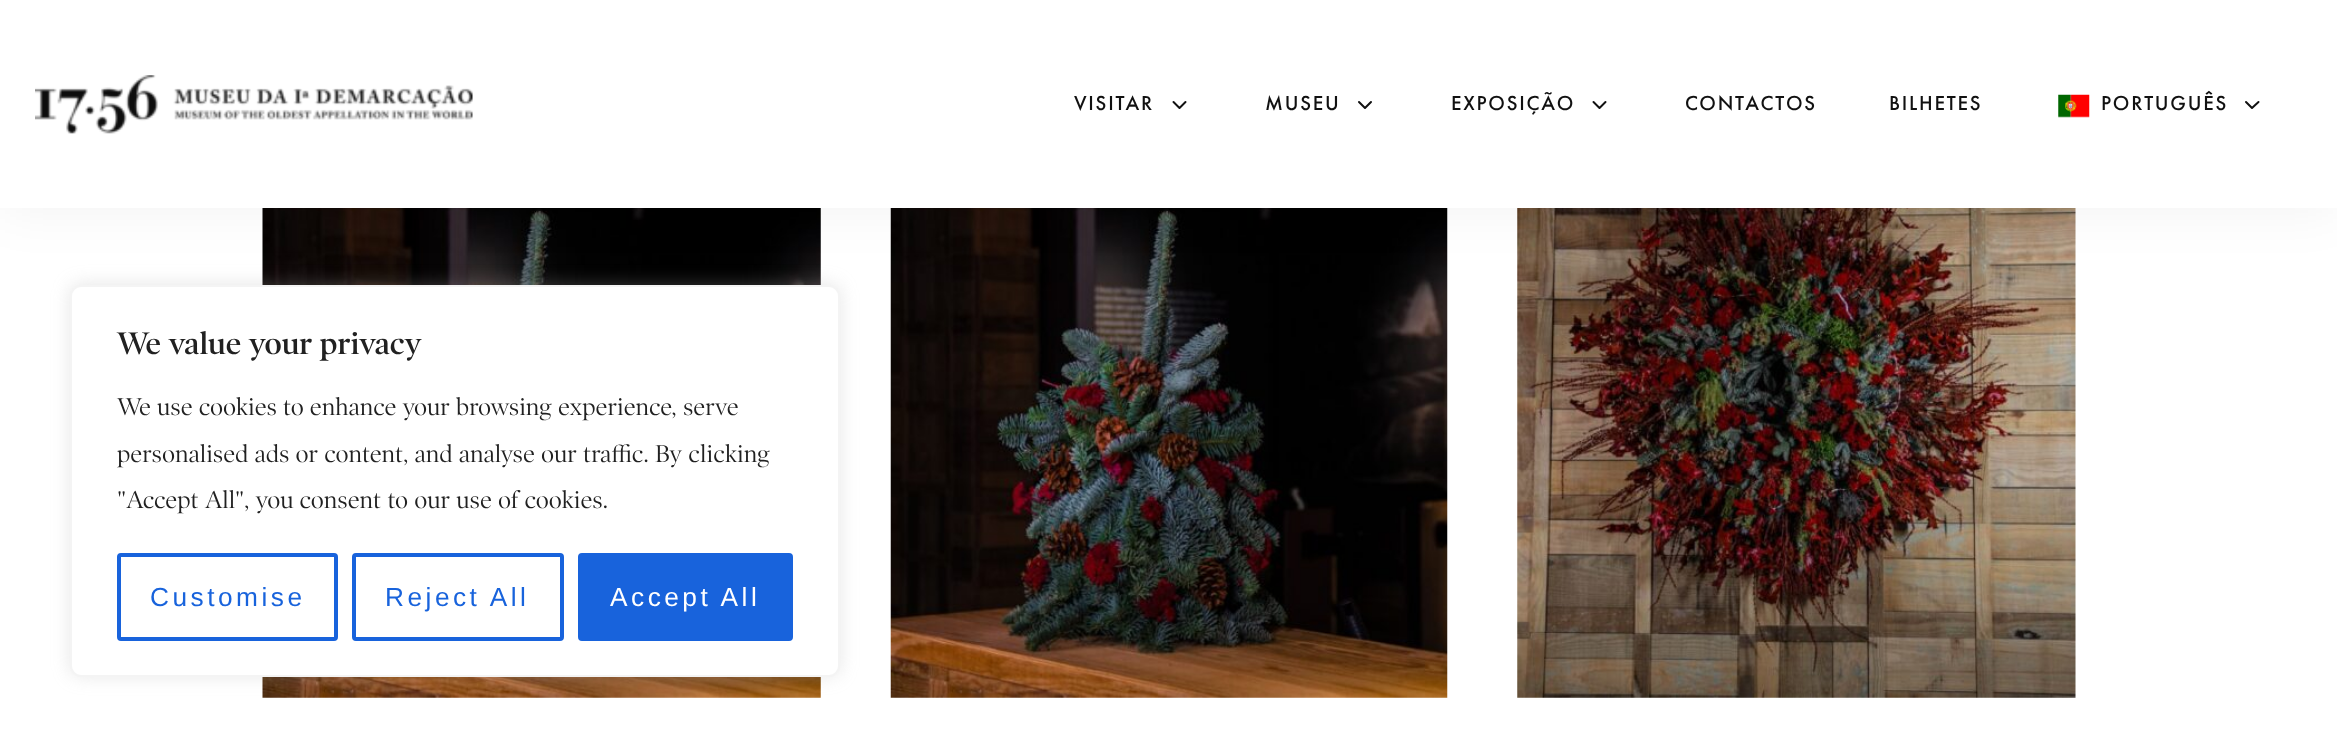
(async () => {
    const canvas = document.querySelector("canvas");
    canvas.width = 2337;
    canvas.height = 747;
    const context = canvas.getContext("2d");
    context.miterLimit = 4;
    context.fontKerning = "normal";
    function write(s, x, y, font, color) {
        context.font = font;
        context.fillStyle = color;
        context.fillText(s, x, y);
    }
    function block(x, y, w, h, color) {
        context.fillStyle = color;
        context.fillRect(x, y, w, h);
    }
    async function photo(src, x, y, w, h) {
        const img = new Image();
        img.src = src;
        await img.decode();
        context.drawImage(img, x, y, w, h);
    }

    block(0, 0, 2337, 747, "rgb(255, 255, 255)");
    await photo("media/3.png", 262, 208, 559, 490);
    await photo("media/4.png", 890, 208, 558, 490);
    await photo("media/5.png", 1517, 208, 559, 490);
    context.fillStyle = "rgba(0, 0, 0, 0.05)";
    context.filter = "blur(26px)";
    context.beginPath();
    context.rect(0, 2, 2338, 208);
    context.fill();
    context.filter = "none";
    block(0, 0, 2337, 208, "rgb(255, 255, 255)");
    await photo("media/1.png", 35, 75, 438, 59);
    context.letterSpacing = "1.75px";
    write("VISITAR", 1074, 110, "500 21px Futura PT", "rgb(17, 17, 17)");
    context.beginPath();
    context.moveTo(1173.5, 102);
    context.lineTo(1179.5, 108);
    context.lineTo(1185.5, 102);
    context.strokeStyle = "rgb(17, 17, 17)";
    context.lineWidth = 2;
    context.lineCap = "round";
    context.lineJoin = "round";
    context.stroke();
    write("MUSEU", 1265, 110, "500 21px Futura PT", "rgb(17, 17, 17)");
    context.beginPath();
    context.moveTo(1359, 102);
    context.lineTo(1365, 108);
    context.lineTo(1371, 102);
    context.stroke();
    write("EXPOSIÇÃO", 1451, 110, "500 21px Futura PT", "rgb(17, 17, 17)");
    context.beginPath();
    context.moveTo(1593.5, 102);
    context.lineTo(1599.5, 108);
    context.lineTo(1605.5, 102);
    context.stroke();
    write("CONTACTOS", 1685, 110, "500 21px Futura PT", "rgb(17, 17, 17)");
    write("BILHETES", 1889, 110, "500 21px Futura PT", "rgb(17, 17, 17)");
    await photo("media/2.png", 2058, 94, 32, 24);
    write("PORTUGUÊS", 2101, 110, "500 21px Futura PT", "rgb(17, 17, 17)");
    context.beginPath();
    context.moveTo(2246, 102);
    context.lineTo(2252, 108);
    context.lineTo(2258.5, 102);
    context.stroke();
    context.fillStyle = "rgba(172, 171, 171, 0.3)";
    context.filter = "blur(9px)";
    context.beginPath();
    context.roundRect(70, 284, 770, 392, 11);
    context.fill();
    context.filter = "none";
    context.fillStyle = "rgb(255, 255, 255)";
    context.beginPath();
    context.roundRect(71, 286, 768, 390, 10);
    context.fill();
    context.strokeStyle = "rgb(244, 244, 244)";
    context.lineJoin = "miter";
    context.stroke();
    context.letterSpacing = "0px";
    write("We value your privacy", 117, 354, "600 31.5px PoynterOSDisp", "rgb(33, 33, 33)");
    write("We use cookies to enhance your browsing experience, serve", 117, 415, "24.5px PoynterOSDisp", "rgb(33, 33, 33)");
    write("personalised ads or content, and analyse our traffic. By clicking", 117, 462, "24.5px PoynterOSDisp", "rgb(33, 33, 33)");
    write("\"Accept All\", you consent to our use of cookies.", 117, 508, "24.5px PoynterOSDisp", "rgb(33, 33, 33)");
    context.beginPath();
    context.roundRect(119, 555, 217, 84, 2);
    context.strokeStyle = "rgb(24, 99, 220)";
    context.lineWidth = 4;
    context.stroke();
    context.letterSpacing = "3.5px";
    write("Customise", 150, 606, "26.25px Liberation Sans", "rgb(24, 99, 220)");
    context.beginPath();
    context.roundRect(354, 555, 208, 84, 2);
    context.stroke();
    write("Reject All", 385, 606, "26.25px Liberation Sans", "rgb(24, 99, 220)");
    context.beginPath();
    context.roundRect(580, 555, 211, 84, 2);
    context.fill();
    context.stroke();
    write("Accept All", 610, 606, "26.25px Liberation Sans", "rgb(255, 255, 255)");
})();
